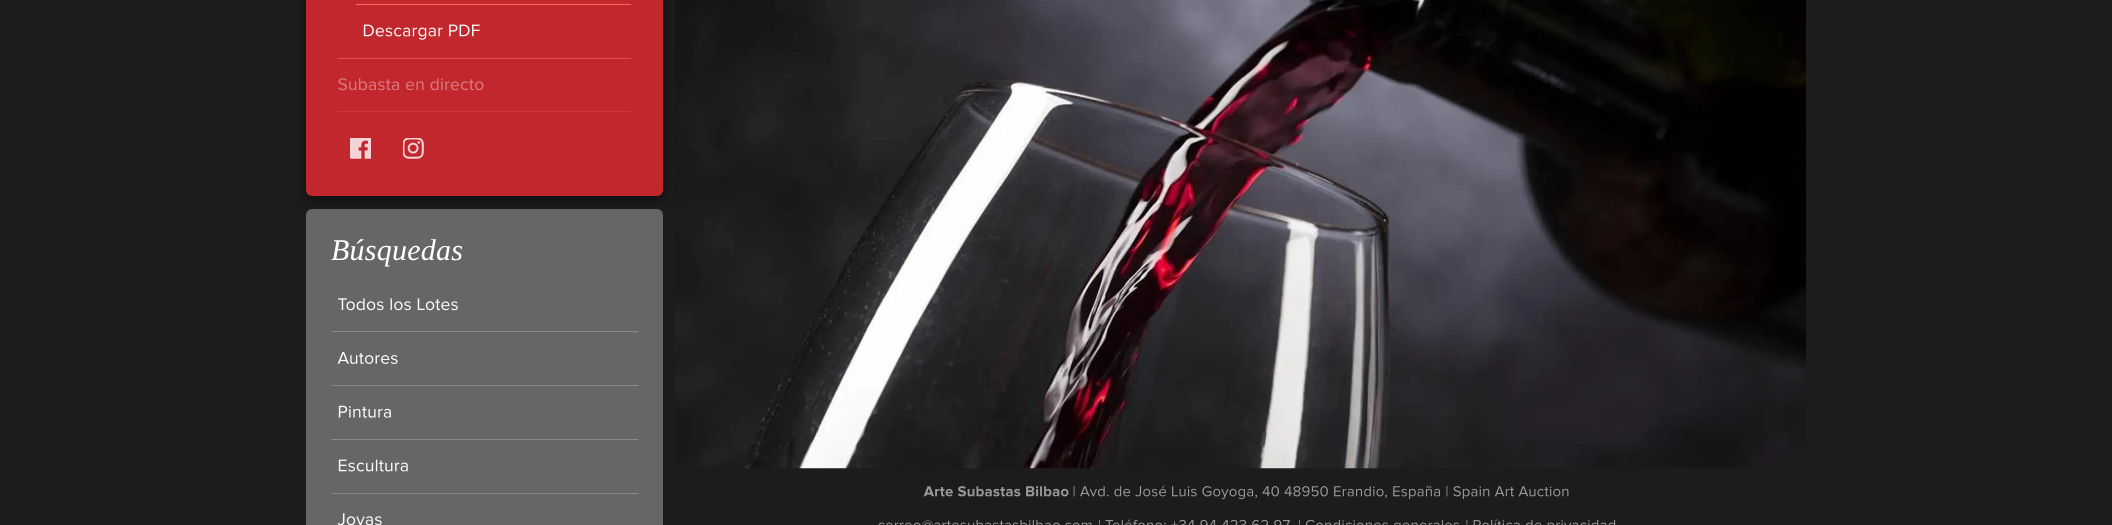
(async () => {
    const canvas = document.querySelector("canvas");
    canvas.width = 2112;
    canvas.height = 525;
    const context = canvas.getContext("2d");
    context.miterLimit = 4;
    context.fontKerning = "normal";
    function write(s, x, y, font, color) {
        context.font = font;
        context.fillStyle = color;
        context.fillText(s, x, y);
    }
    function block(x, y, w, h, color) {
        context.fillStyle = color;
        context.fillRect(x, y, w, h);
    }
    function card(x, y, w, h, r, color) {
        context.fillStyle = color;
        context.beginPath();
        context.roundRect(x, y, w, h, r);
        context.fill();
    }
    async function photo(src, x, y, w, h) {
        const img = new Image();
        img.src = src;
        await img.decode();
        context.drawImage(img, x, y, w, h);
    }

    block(0, 0, 2112, 525, "rgb(28, 28, 28)");
    await photo("media/10.png", 675, 0, 1131, 469);
    context.fillStyle = "rgba(0, 0, 0, 0.5)";
    context.filter = "blur(6px)";
    context.beginPath();
    context.roundRect(306, -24, 357, 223, 6);
    context.fill();
    context.filter = "none";
    card(306, -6, 357, 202, 6, "rgb(193, 39, 45)");
    block(338, 58, 293, 1, "rgb(230, 77, 69)");
    block(356, 4, 275, 1, "rgb(255, 102, 85)");
    await photo("media/1.png", 363, 24, 117, 16);
    block(338, 111, 293, 1, "rgb(208, 54, 55)");
    await photo("media/2.png", 338, 78, 146, 13);
    await photo("media/3.png", 350, 138, 21, 21);
    await photo("media/4.png", 403, 138, 21, 21);
    card(306, 209, 357, 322, 6, "rgb(102, 102, 102)");
    context.letterSpacing = "0.25px";
    write("Búsquedas", 331, 260, "italic 30px Liberation Serif", "rgb(255, 255, 255)");
    block(331, 331, 307, 1, "rgb(136, 136, 136)");
    await photo("media/5.png", 338, 298, 120, 13);
    block(331, 385, 307, 1, "rgb(136, 136, 136)");
    await photo("media/6.png", 337, 352, 61, 12);
    block(331, 439, 307, 1, "rgb(136, 136, 136)");
    await photo("media/7.png", 338, 405, 53, 13);
    block(331, 493, 307, 1, "rgb(136, 136, 136)");
    await photo("media/8.png", 338, 459, 70, 13);
    await photo("media/9.png", 337, 513, 45, 12);
    await photo("media/11.png", 923, 486, 146, 11);
    await photo("media/12.png", 1073, 485, 496, 15);
    await photo("media/13.png", 878, 520, 214, 5);
    await photo("media/14.png", 1099, 519, 1, 6);
    await photo("media/15.png", 1105, 519, 185, 6);
    await photo("media/14.png", 1299, 519, 1, 6);
    await photo("media/16.png", 1305, 519, 154, 6);
    await photo("media/17.png", 1466, 519, 2, 6);
    await photo("media/18.png", 1473, 519, 143, 6);
})();
